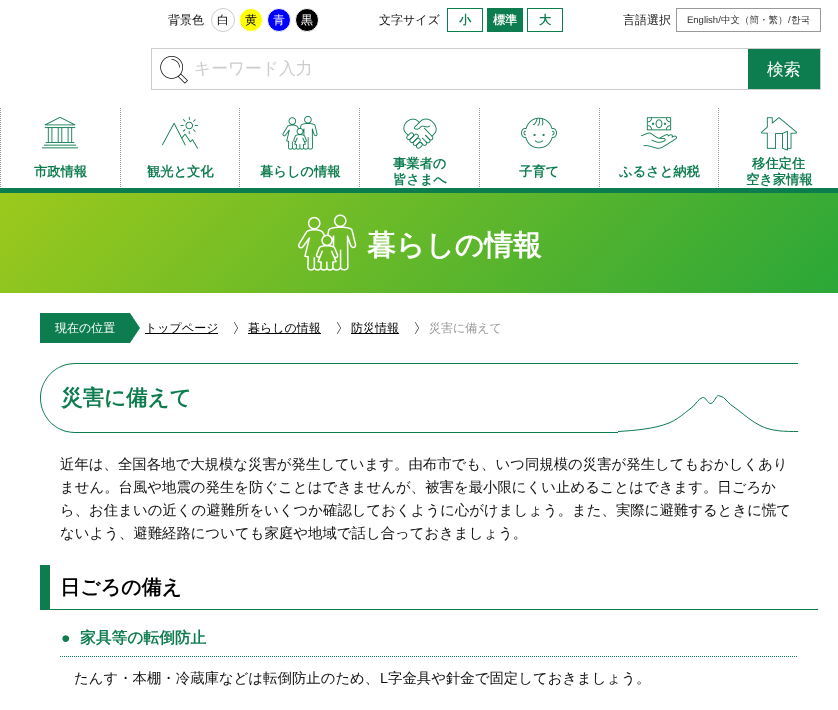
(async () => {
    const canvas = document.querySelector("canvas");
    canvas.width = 838;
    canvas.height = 710;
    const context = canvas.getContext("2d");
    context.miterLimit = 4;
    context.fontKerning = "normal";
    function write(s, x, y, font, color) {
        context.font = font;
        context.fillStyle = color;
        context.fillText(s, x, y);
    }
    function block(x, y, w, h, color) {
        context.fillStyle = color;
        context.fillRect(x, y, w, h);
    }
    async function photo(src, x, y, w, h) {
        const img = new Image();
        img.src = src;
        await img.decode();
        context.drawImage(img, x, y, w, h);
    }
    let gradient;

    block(0, 0, 838, 710, "rgb(255, 255, 255)");
    block(0, 188, 838, 5, "rgb(13, 124, 79)");
    write("背景色", 168, 24, "500 12px WenQuanYi Zen Hei", "rgb(17, 17, 17)");
    context.beginPath();
    context.arc(223, 20, 11.5, 0, Math.PI * 2);
    context.strokeStyle = "rgb(204, 204, 204)";
    context.stroke();
    write("白", 217, 24, "500 12px WenQuanYi Zen Hei", "rgb(0, 0, 0)");
    context.fillStyle = "rgb(255, 255, 0)";
    context.beginPath();
    context.arc(251, 20, 11.5, 0, Math.PI * 2);
    context.fill();
    context.strokeStyle = "rgb(255, 255, 255)";
    context.stroke();
    write("黄", 245, 24, "500 12px WenQuanYi Zen Hei", "rgb(0, 0, 0)");
    context.fillStyle = "rgb(0, 0, 255)";
    context.beginPath();
    context.arc(279, 20, 11.5, 0, Math.PI * 2);
    context.fill();
    context.stroke();
    write("青", 273, 24, "500 12px WenQuanYi Zen Hei", "rgb(255, 255, 255)");
    context.fillStyle = "rgb(0, 0, 0)";
    context.beginPath();
    context.arc(307, 20, 11.5, 0, Math.PI * 2);
    context.fill();
    context.stroke();
    write("黒", 301, 24, "500 12px WenQuanYi Zen Hei", "rgb(255, 255, 255)");
    write("文字サイズ", 379, 24, "500 12px WenQuanYi Zen Hei", "rgb(17, 17, 17)");
    context.strokeStyle = "rgb(13, 124, 79)";
    context.strokeRect(447.5, 8.5, 35, 23);
    write("小", 459, 24, "bold 12px WenQuanYi Zen Hei", "rgb(13, 124, 79)");
    block(487, 8, 36, 24, "rgb(13, 124, 79)");
    write("標準", 493, 24, "bold 12px WenQuanYi Zen Hei", "rgb(255, 255, 255)");
    context.strokeRect(527.5, 8.5, 35, 23);
    write("大", 539, 24, "bold 12px WenQuanYi Zen Hei", "rgb(13, 124, 79)");
    write("言語選択", 623, 24, "500 12px WenQuanYi Zen Hei", "rgb(17, 17, 17)");
    context.strokeStyle = "rgb(153, 153, 153)";
    context.strokeRect(676.5, 8.5, 144, 23);
    write("English/", 687, 23, "9.5px Liberation Sans", "rgb(51, 51, 51)");
    write("中文（簡・繁）", 721, 23, "500 9.5px WenQuanYi Zen Hei", "rgb(51, 51, 51)");
    write("/", 788, 23, "9.5px Liberation Sans", "rgb(51, 51, 51)");
    write("한국", 791, 23, "500 9.5px WenQuanYi Zen Hei", "rgb(51, 51, 51)");
    await photo("media/1.png", 160, 56, 28, 28);
    context.strokeStyle = "rgb(204, 204, 204)";
    context.strokeRect(151.5, 48.5, 669, 41);
    write("キーワード入力", 194, 74, "500 16.75px WenQuanYi Zen Hei", "rgb(204, 204, 204)");
    block(748, 49, 72, 40, "rgb(13, 124, 79)");
    write("検索", 767, 75, "500 16.75px WenQuanYi Zen Hei", "rgb(255, 255, 255)");
    context.beginPath();
    context.moveTo(0.5, 108);
    context.lineTo(0.5, 188);
    context.strokeStyle = "rgb(153, 153, 153)";
    context.setLineDash([1, 1]);
    context.stroke();
    await photo("media/2.png", 42, 116, 36, 33);
    write("市政情報", 34, 176, "bold 13.25px WenQuanYi Zen Hei", "rgb(13, 124, 79)");
    context.beginPath();
    context.moveTo(120.5, 108);
    context.lineTo(120.5, 188);
    context.stroke();
    await photo("media/3.png", 162, 116, 36, 33);
    write("観光と文化", 147, 176, "bold 13.25px WenQuanYi Zen Hei", "rgb(13, 124, 79)");
    context.beginPath();
    context.moveTo(239.5, 108);
    context.lineTo(239.5, 188);
    context.stroke();
    await photo("media/4.png", 282, 115, 36, 35);
    write("暮らしの情報", 260, 176, "bold 13.25px WenQuanYi Zen Hei", "rgb(13, 124, 79)");
    context.beginPath();
    context.moveTo(359.5, 108);
    context.lineTo(359.5, 188);
    context.stroke();
    await photo("media/5.png", 403, 118, 34, 31);
    write("事業者の", 393, 168, "bold 13.25px WenQuanYi Zen Hei", "rgb(13, 124, 79)");
    write("皆さまへ", 393, 184, "bold 13.25px WenQuanYi Zen Hei", "rgb(13, 124, 79)");
    context.beginPath();
    context.moveTo(479.5, 108);
    context.lineTo(479.5, 188);
    context.stroke();
    await photo("media/6.png", 521, 117, 36, 32);
    write("子育て", 519, 176, "bold 13.25px WenQuanYi Zen Hei", "rgb(13, 124, 79)");
    context.beginPath();
    context.moveTo(599.5, 108);
    context.lineTo(599.5, 188);
    context.stroke();
    await photo("media/7.png", 641, 117, 36, 32);
    write("ふるさと納税", 619, 176, "bold 13.25px WenQuanYi Zen Hei", "rgb(13, 124, 79)");
    context.beginPath();
    context.moveTo(718.5, 108);
    context.lineTo(718.5, 188);
    context.stroke();
    await photo("media/8.png", 761, 117, 36, 34);
    write("移住定住", 752, 168, "bold 13.25px WenQuanYi Zen Hei", "rgb(13, 124, 79)");
    write("空き家情報", 746, 184, "bold 13.25px WenQuanYi Zen Hei", "rgb(13, 124, 79)");
    gradient = context.createLinearGradient(184, 9, 654, 478);
    gradient.addColorStop(0, "rgb(156, 201, 28)");
    gradient.addColorStop(1, "rgb(43, 167, 56)");
    context.fillStyle = gradient;
    context.fillRect(0, 193, 838, 100);
    await photo("media/9.png", 297, 214, 60, 57);
    write("暮らしの情報", 367, 255, "bold 28.75px WenQuanYi Zen Hei", "rgb(255, 255, 255)");
    block(40, 313, 90, 30, "rgb(13, 124, 79)");
    write("現在の位置", 55, 332, "500 12px WenQuanYi Zen Hei", "rgb(255, 255, 255)");
    context.fillStyle = "rgb(13, 124, 79)";
    context.beginPath();
    context.moveTo(130, 343);
    context.lineTo(130, 313);
    context.lineTo(140, 328);
    context.closePath();
    context.fill();
    await photo("media/10.png", 234, 322, 4, 12);
    block(145, 333, 73, 1, "rgb(0, 0, 0)");
    write("トップページ", 145, 332, "500 12px WenQuanYi Zen Hei", "rgb(0, 0, 0)");
    await photo("media/10.png", 337, 322, 4, 12);
    block(248, 333, 73, 1, "rgb(0, 0, 0)");
    write("暮らしの情報", 248, 332, "500 12px WenQuanYi Zen Hei", "rgb(0, 0, 0)");
    await photo("media/10.png", 415, 322, 4, 12);
    block(351, 333, 48, 1, "rgb(0, 0, 0)");
    write("防災情報", 351, 332, "500 12px WenQuanYi Zen Hei", "rgb(0, 0, 0)");
    write("災害に備えて", 429, 332, "500 12px WenQuanYi Zen Hei", "rgb(153, 153, 153)");
    context.fillStyle = "rgb(13, 124, 79)";
    context.beginPath();
    context.moveTo(75, 363);
    context.lineTo(798, 363);
    context.lineTo(798, 433);
    context.lineTo(75, 433);
    context.bezierCurveTo(56, 433, 40, 417, 40, 398);
    context.bezierCurveTo(40, 379, 56, 363, 75, 363);
    context.closePath();
    context.moveTo(75, 364);
    context.lineTo(798, 364);
    context.lineTo(798, 432);
    context.lineTo(75, 432);
    context.bezierCurveTo(56, 432, 41, 417, 41, 398);
    context.bezierCurveTo(41, 379, 56, 364, 75, 364);
    context.closePath();
    context.fill("evenodd");
    write("災害に備えて", 61, 405, "bold 21.5px WenQuanYi Zen Hei", "rgb(13, 124, 79)");
    block(618, 432, 180, 1, "rgb(255, 255, 255)");
    context.beginPath();
    context.moveTo(798, 431.5);
    context.bezierCurveTo(785.5, 431.5, 771.5, 431.5, 760, 425.5);
    context.bezierCurveTo(752, 421.5, 745, 415.5, 738, 410);
    context.lineTo(730.5, 404.5);
    context.lineTo(723.5, 397.5);
    context.lineTo(718.5, 395.5);
    context.bezierCurveTo(715.5, 396, 714.5, 402.5, 711, 403.5);
    context.bezierCurveTo(707.5, 404, 706, 396.5, 702.5, 397.5);
    context.bezierCurveTo(698.5, 399, 696, 403.5, 693, 406.5);
    context.lineTo(685.5, 412.5);
    context.bezierCurveTo(680.5, 416.5, 675, 420.5, 669, 423);
    context.bezierCurveTo(654, 429, 634, 430.5, 618, 431.5);
    context.strokeStyle = "rgb(13, 124, 79)";
    context.setLineDash([]);
    context.stroke();
    write("近年は、全国各地で大規模な災害が発生しています。由布市でも、いつ同規模の災害が発生してもおかしくあり", 60, 469, "500 14.4px WenQuanYi Zen Hei", "rgb(17, 17, 17)");
    write("ません。台風や地震の発生を防ぐことはできませんが、被害を最小限にくい止めることはできます。日ごろか", 60, 492, "500 14.4px WenQuanYi Zen Hei", "rgb(17, 17, 17)");
    write("ら、お住まいの近くの避難所をいくつか確認しておくように心がけましょう。また、実際に避難するときに慌て", 60, 515, "500 14.4px WenQuanYi Zen Hei", "rgb(17, 17, 17)");
    write("ないよう、避難経路についても家庭や地域で話し合っておきましょう。", 60, 538, "500 14.4px WenQuanYi Zen Hei", "rgb(17, 17, 17)");
    block(50, 609, 768, 1, "rgb(13, 124, 79)");
    block(40, 565, 10, 45, "rgb(13, 124, 79)");
    write("日ごろの備え", 60, 594, "bold 20px WenQuanYi Zen Hei", "rgb(0, 0, 0)");
    context.beginPath();
    context.moveTo(60, 656.5);
    context.lineTo(798, 656.5);
    context.setLineDash([1, 1]);
    context.stroke();
    write("●", 61, 643, "bold 15.75px Liberation Sans", "rgb(13, 124, 79)");
    write("家具等の転倒防止", 80, 643, "bold 15.75px WenQuanYi Zen Hei", "rgb(13, 124, 79)");
    write("たんす・本棚・冷蔵庫などは転倒防止のため、", 74, 683, "500 14.4px WenQuanYi Zen Hei", "rgb(17, 17, 17)");
    write("L", 380, 683, "14.4px Liberation Sans", "rgb(17, 17, 17)");
    write("字金具や針金で固定しておきましょう。", 388, 683, "500 14.4px WenQuanYi Zen Hei", "rgb(17, 17, 17)");
})();
